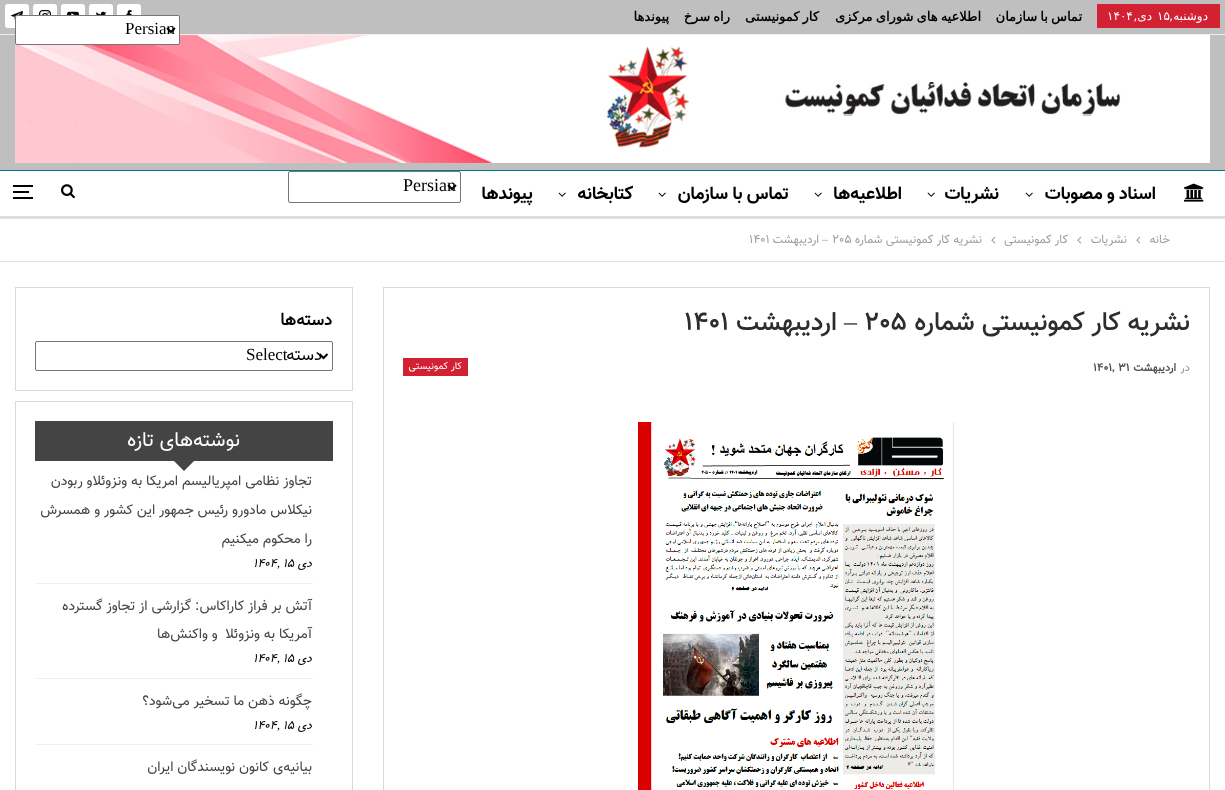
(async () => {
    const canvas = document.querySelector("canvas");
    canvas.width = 1225;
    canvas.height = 790;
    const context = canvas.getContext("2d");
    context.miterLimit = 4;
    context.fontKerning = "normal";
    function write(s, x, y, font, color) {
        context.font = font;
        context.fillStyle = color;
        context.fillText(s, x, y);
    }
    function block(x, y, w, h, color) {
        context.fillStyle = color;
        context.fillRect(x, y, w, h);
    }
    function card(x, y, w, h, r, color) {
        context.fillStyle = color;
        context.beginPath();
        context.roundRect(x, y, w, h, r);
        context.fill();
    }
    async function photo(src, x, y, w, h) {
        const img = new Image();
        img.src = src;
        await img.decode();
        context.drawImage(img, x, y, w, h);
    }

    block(0, 0, 1225, 790, "rgb(255, 255, 255)");
    block(0, 0, 1225, 170, "rgb(191, 191, 191)");
    block(0, 34, 1225, 1, "rgb(239, 239, 239)");
    block(1097, 4, 123, 24, "rgb(209, 33, 51)");
    context.direction = "rtl";
    write("دوشنبه,", 1208, 20, "12px DejaVu Sans", "rgb(255, 255, 255)");
    context.direction = "ltr";
    write("۱۵", 1157, 20, "12px DejaVu Sans", "rgb(255, 255, 255)");
    context.direction = "rtl";
    write("دی,", 1152, 20, "12px DejaVu Sans", "rgb(255, 255, 255)");
    context.direction = "ltr";
    write("۱۴۰۴", 1107, 20, "12px DejaVu Sans", "rgb(255, 255, 255)");
    context.wordSpacing = "-1px";
    context.direction = "rtl";
    write("تماس با سازمان", 1082, 21, "bold 13px DejaVu Sans", "rgb(0, 0, 0)");
    write("اطلاعیه های شورای مرکزی", 981, 21, "bold 13px DejaVu Sans", "rgb(0, 0, 0)");
    write("کار کمونیستی", 819, 21, "bold 13px DejaVu Sans", "rgb(0, 0, 0)");
    write("راه سرخ", 730, 21, "bold 13px DejaVu Sans", "rgb(0, 0, 0)");
    context.wordSpacing = "0px";
    write("پیوندها", 669, 21, "bold 13px DejaVu Sans", "rgb(0, 0, 0)");
    card(117, 4, 24, 24, 3, "rgb(255, 255, 255)");
    await photo("media/1.png", 126, 10, 6, 5);
    card(89, 4, 24, 24, 3, "rgb(255, 255, 255)");
    await photo("media/2.png", 96, 11, 11, 4);
    card(61, 4, 24, 24, 3, "rgb(255, 255, 255)");
    await photo("media/3.png", 67, 11, 12, 4);
    card(33, 4, 24, 24, 3, "rgb(255, 255, 255)");
    await photo("media/4.png", 39, 10, 12, 5);
    card(5, 4, 24, 24, 3, "rgb(255, 255, 255)");
    await photo("media/5.png", 11, 11, 12, 9);
    await photo("media/6.png", 15, 35, 1195, 128);
    block(0, 170, 1225, 1, "rgb(7, 119, 150)");
    block(0, 216, 1225, 3, "rgb(222, 222, 222)");
    await photo("media/7.png", 1184, 183, 20, 19);
    context.letterSpacing = "0.5px";
    context.wordSpacing = "-1px";
    write("اسناد و مصوبات", 1156, 199, "bold 18px 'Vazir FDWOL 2'", "rgb(0, 0, 0)");
    await photo("media/8.png", 1025, 192, 8, 5);
    context.wordSpacing = "0px";
    write("نشریات", 999, 199, "bold 18px 'Vazir FDWOL 2'", "rgb(0, 0, 0)");
    await photo("media/8.png", 927, 192, 8, 5);
    write("اطلاعیه‌ها", 902, 199, "bold 18px 'Vazir FDWOL 2'", "rgb(0, 0, 0)");
    await photo("media/8.png", 814, 192, 8, 5);
    context.wordSpacing = "-1px";
    write("تماس با سازمان", 789, 199, "bold 18px 'Vazir FDWOL 2'", "rgb(0, 0, 0)");
    await photo("media/8.png", 658, 192, 8, 5);
    context.wordSpacing = "0px";
    write("کتابخانه", 633, 199, "bold 18px 'Vazir FDWOL 2'", "rgb(0, 0, 0)");
    await photo("media/8.png", 558, 192, 8, 5);
    write("پیوندها", 533, 199, "bold 18px 'Vazir FDWOL 2'", "rgb(0, 0, 0)");
    context.beginPath();
    context.roundRect(288.5, 171.5, 172, 31, 1.5);
    context.strokeStyle = "rgb(118, 118, 118)";
    context.stroke();
    context.beginPath();
    context.moveTo(448, 185);
    context.lineTo(452, 189);
    context.lineTo(456, 185);
    context.strokeStyle = "rgb(0, 0, 0)";
    context.lineWidth = 2;
    context.stroke();
    context.letterSpacing = "0px";
    context.direction = "ltr";
    write("Persian", 403, 191, "18px Liberation Serif", "rgb(0, 0, 0)");
    await photo("media/9.png", 61, 184, 14, 15);
    block(13, 191, 16, 2, "rgb(0, 0, 0)");
    block(13, 185, 20, 2, "rgb(0, 0, 0)");
    block(13, 197, 20, 2, "rgb(0, 0, 0)");
    block(0, 261, 1225, 1, "rgb(226, 226, 226)");
    context.direction = "rtl";
    write("خانه", 1170, 243, "12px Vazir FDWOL", "rgb(158, 158, 158)");
    await photo("media/10.png", 1136, 236, 5, 8);
    write("نشریات", 1127, 243, "12px Vazir FDWOL", "rgb(158, 158, 158)");
    await photo("media/10.png", 1077, 236, 5, 8);
    write("کار کمونیستی", 1068, 243, "12px Vazir FDWOL", "rgb(158, 158, 158)");
    await photo("media/10.png", 991, 236, 5, 8);
    write("نشریه کار کمونیستی شماره", 982, 243, "12px Vazir FDWOL", "rgb(158, 158, 158)");
    context.direction = "ltr";
    write("205", 832, 243, "12px Vazir FDWOL", "rgb(158, 158, 158)");
    context.direction = "rtl";
    write("–", 828, 243, "12px Liberation Serif", "rgb(158, 158, 158)");
    write("اردیبهشت", 819, 243, "12px Vazir FDWOL", "rgb(158, 158, 158)");
    context.direction = "ltr";
    write("1401", 749, 243, "12px Vazir FDWOL", "rgb(158, 158, 158)");
    context.strokeStyle = "rgb(210, 220, 227)";
    context.lineWidth = 1;
    context.strokeRect(383.5, 287.5, 826, 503);
    context.direction = "rtl";
    write("نشریه کار کمونیستی شماره", 1190, 330, "500 26px Vazir FDWOL", "rgb(45, 45, 45)");
    context.direction = "ltr";
    write("205", 864, 330, "500 26px Vazir FDWOL", "rgb(45, 45, 45)");
    context.direction = "rtl";
    write("–", 857, 330, "26px Liberation Serif", "rgb(45, 45, 45)");
    write("اردیبهشت", 837, 330, "500 26px Vazir FDWOL", "rgb(45, 45, 45)");
    context.direction = "ltr";
    write("1401", 684, 330, "500 26px Vazir FDWOL", "rgb(45, 45, 45)");
    context.direction = "rtl";
    write("در", 1190, 371, "11px Vazir FDWOL", "rgb(143, 143, 143)");
    write("اردیبهشت", 1176, 371, "bold 11px Vazir FDWOL", "rgb(77, 77, 77)");
    context.direction = "ltr";
    write("۳۱", 1118, 371, "bold 11px Vazir FDWOL", "rgb(77, 77, 77)");
    write(",", 1112, 371, "bold 11px Liberation Serif", "rgb(77, 77, 77)");
    write("۱۴۰۱", 1093, 371, "bold 11px Vazir FDWOL", "rgb(77, 77, 77)");
    block(403, 358, 65, 18, "rgb(209, 33, 51)");
    context.direction = "rtl";
    write("کار کمونیستی", 462, 369, "10px Vazir FDWOL", "rgb(255, 255, 255)");
    await photo("media/11.png", 638, 422, 316, 368);
    context.strokeRect(15.5, 287.5, 337, 103);
    write("دسته‌ها", 332, 325, "bold 17px Vazir FDWOL", "rgb(0, 0, 0)");
    context.beginPath();
    context.roundRect(35.5, 341.5, 297, 29, 1.5);
    context.strokeStyle = "rgb(118, 118, 118)";
    context.stroke();
    context.beginPath();
    context.moveTo(319.5, 354);
    context.lineTo(323.5, 358);
    context.lineTo(327.5, 354);
    context.strokeStyle = "rgb(0, 0, 0)";
    context.lineWidth = 2;
    context.stroke();
    context.direction = "ltr";
    write("Select", 246, 360, "17px Liberation Serif", "rgb(0, 0, 0)");
    context.direction = "rtl";
    write("دسته", 322, 360, "17px Vazir FDWOL", "rgb(0, 0, 0)");
    context.strokeStyle = "rgb(210, 220, 227)";
    context.lineWidth = 1;
    context.strokeRect(15.5, 401.5, 337, 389);
    block(35, 421, 298, 40, "rgb(68, 68, 68)");
    write("نوشته‌های تازه", 240, 446, "20px Vazir FDWOL", "rgb(255, 255, 255)");
    context.fillStyle = "rgb(68, 68, 68)";
    context.beginPath();
    context.moveTo(174, 461);
    context.lineTo(194, 461);
    context.lineTo(184, 471);
    context.closePath();
    context.fill();
    block(35, 583, 278, 1, "rgb(240, 240, 240)");
    write("تجاوز نظامی امپریالیسم امریکا به ونزوئلاو ربودن", 312, 485, "14px Vazir FDWOL", "rgb(68, 68, 68)");
    write("نیکلاس مادورو رئیس جمهور این کشور و همسرش", 312, 514, "14px Vazir FDWOL", "rgb(68, 68, 68)");
    write("را محکوم میکنیم", 312, 543, "14px Vazir FDWOL", "rgb(68, 68, 68)");
    write("دی", 312, 567, "italic 12px Vazir FDWOL", "rgb(0, 0, 0)");
    context.direction = "ltr";
    write("۱۵", 283, 567, "italic 12px Vazir FDWOL", "rgb(0, 0, 0)");
    write("۱۴۰۴", 253, 567, "italic 12px Vazir FDWOL", "rgb(0, 0, 0)");
    write(",", 277, 567, "italic 12px Liberation Serif", "rgb(0, 0, 0)");
    block(35, 678, 278, 1, "rgb(240, 240, 240)");
    context.direction = "rtl";
    write("آتش بر فراز کاراکاس: گزارشی از تجاوز گسترده", 312, 610, "14px Vazir FDWOL", "rgb(68, 68, 68)");
    write("آمریکا به ونزوئلا  و واکنش‌ها", 312, 638, "14px Vazir FDWOL", "rgb(68, 68, 68)");
    write("دی", 312, 662, "italic 12px Vazir FDWOL", "rgb(0, 0, 0)");
    context.direction = "ltr";
    write("۱۵", 283, 662, "italic 12px Vazir FDWOL", "rgb(0, 0, 0)");
    write("۱۴۰۴", 253, 662, "italic 12px Vazir FDWOL", "rgb(0, 0, 0)");
    write(",", 277, 662, "italic 12px Liberation Serif", "rgb(0, 0, 0)");
    block(35, 744, 278, 1, "rgb(240, 240, 240)");
    context.direction = "rtl";
    write("چگونه ذهن ما تسخیر می‌شود؟", 312, 705, "14px Vazir FDWOL", "rgb(68, 68, 68)");
    write("دی", 312, 729, "italic 12px Vazir FDWOL", "rgb(0, 0, 0)");
    context.direction = "ltr";
    write("۱۵", 283, 729, "italic 12px Vazir FDWOL", "rgb(0, 0, 0)");
    write("۱۴۰۴", 253, 729, "italic 12px Vazir FDWOL", "rgb(0, 0, 0)");
    write(",", 277, 729, "italic 12px Liberation Serif", "rgb(0, 0, 0)");
    context.direction = "rtl";
    write("بیانیه‌ی کانون نویسندگان ایران", 312, 771, "14px Vazir FDWOL", "rgb(68, 68, 68)");
    context.fillStyle = "rgb(255, 255, 255)";
    context.beginPath();
    context.roundRect(15.5, 15.5, 164, 29, 1.5);
    context.fill();
    context.strokeStyle = "rgb(118, 118, 118)";
    context.stroke();
    context.beginPath();
    context.moveTo(167, 28);
    context.lineTo(171, 32);
    context.lineTo(175, 28);
    context.strokeStyle = "rgb(0, 0, 0)";
    context.lineWidth = 2;
    context.stroke();
    context.direction = "ltr";
    write("Persian", 125, 34, "17px Liberation Serif", "rgb(0, 0, 0)");
})();
